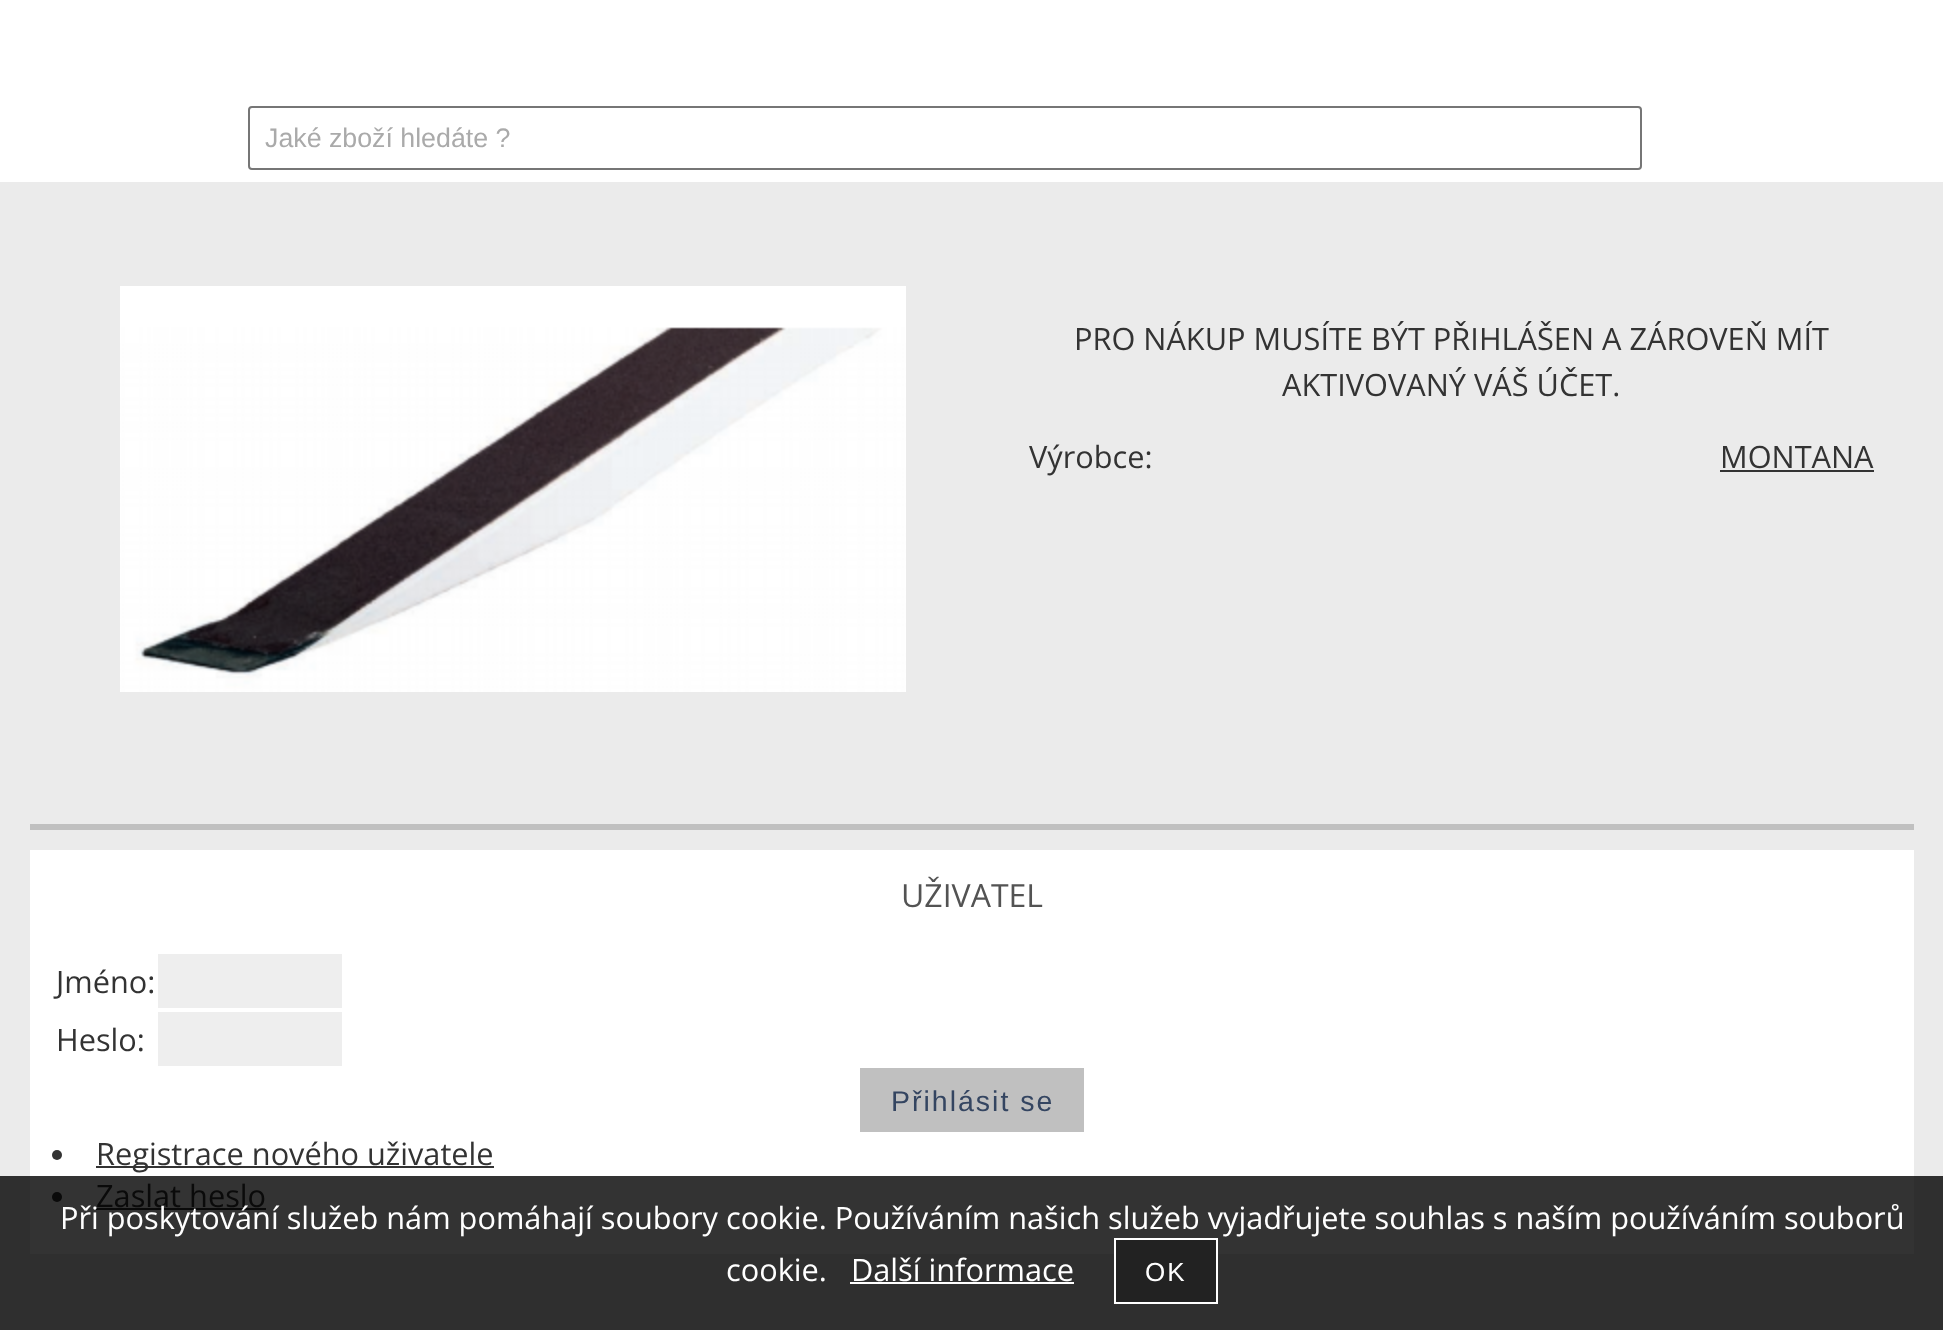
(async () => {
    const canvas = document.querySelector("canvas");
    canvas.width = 1943;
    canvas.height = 1330;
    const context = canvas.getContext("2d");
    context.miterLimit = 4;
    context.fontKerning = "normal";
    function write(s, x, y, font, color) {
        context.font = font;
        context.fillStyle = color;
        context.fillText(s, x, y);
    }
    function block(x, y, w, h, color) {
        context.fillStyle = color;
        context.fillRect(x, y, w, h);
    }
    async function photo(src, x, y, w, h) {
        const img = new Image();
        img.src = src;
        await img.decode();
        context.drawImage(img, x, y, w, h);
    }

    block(0, 0, 1943, 1330, "rgb(235, 235, 235)");
    block(0, 1176, 1943, 154, "rgb(47, 47, 47)");
    block(0, 0, 1943, 182, "rgb(255, 255, 255)");
    context.beginPath();
    context.roundRect(249, 107, 1392, 62, 3);
    context.strokeStyle = "rgb(118, 118, 118)";
    context.lineWidth = 2;
    context.stroke();
    write("Jaké zboží hledáte ?", 265, 147, "26.75px Liberation Sans", "rgb(170, 170, 170)");
    await photo("media/1.png", 120, 286, 786, 406);
    write("PRO NÁKUP MUSÍTE BÝT PŘIHLÁŠEN A ZÁROVEŇ MÍT", 1074, 350, "30.72px Open Sans", "rgb(51, 51, 51)");
    write("AKTIVOVANÝ VÁŠ ÚČET.", 1282, 396, "30.72px Open Sans", "rgb(51, 51, 51)");
    write("Výrobce:", 1029, 468, "30.72px Open Sans", "rgb(51, 51, 51)");
    write("MONTANA", 1720, 468, "30.72px Open Sans", "rgb(51, 51, 51)");
    block(1720, 470, 154, 2, "rgb(51, 51, 51)");
    block(30, 824, 1884, 6, "rgb(192, 192, 192)");
    block(30, 850, 1884, 326, "rgb(255, 255, 255)");
    block(30, 1176, 1884, 78, "rgb(51, 51, 51)");
    write("UŽIVATEL", 901, 907, "32px Open Sans", "rgb(83, 83, 83)");
    write("Jméno:", 56, 993, "30.72px Open Sans", "rgb(51, 51, 51)");
    block(158, 954, 184, 54, "rgb(238, 238, 238)");
    write("Heslo:", 56, 1051, "30.72px Open Sans", "rgb(51, 51, 51)");
    block(158, 1012, 184, 54, "rgb(238, 238, 238)");
    block(860, 1068, 224, 64, "rgb(192, 192, 192)");
    context.letterSpacing = "2px";
    write("Přihlásit se", 891, 1111, "28.5px Liberation Sans", "rgb(52, 69, 97)");
    context.fillStyle = "rgb(51, 51, 51)";
    context.beginPath();
    context.arc(57, 1155, 5, 0, Math.PI * 2);
    context.fill();
    block(96, 1166, 398, 2, "rgb(51, 51, 51)");
    context.letterSpacing = "0px";
    write("Registrace nového uživatele", 96, 1165, "30.72px Open Sans", "rgb(51, 51, 51)");
    context.fillStyle = "rgb(10, 10, 10)";
    context.beginPath();
    context.arc(57, 1197, 5, 0, Math.PI * 2);
    context.fill();
    write("Zaslat heslo", 96, 1207, "30.72px Open Sans", "rgb(10, 10, 10)");
    block(96, 1208, 170, 2, "rgb(10, 10, 10)");
    write("Při poskytování služeb nám pomáhají soubory cookie. Používáním našich služeb vyjadřujete souhlas s naším používáním souborů", 60, 1229, "30.72px Open Sans", "rgb(255, 255, 255)");
    write("cookie.", 726, 1281, "30.72px Open Sans", "rgb(255, 255, 255)");
    write("Další informace", 851, 1281, "30.72px Open Sans", "rgb(255, 255, 255)");
    block(850, 1282, 224, 2, "rgb(255, 255, 255)");
    context.fillStyle = "rgb(34, 34, 34)";
    context.beginPath();
    context.rect(1115, 1239, 102, 64);
    context.fill();
    context.strokeStyle = "rgb(255, 255, 255)";
    context.stroke();
    context.letterSpacing = "2px";
    write("OK", 1145, 1281, "26px Liberation Sans", "rgb(255, 255, 255)");
})();
